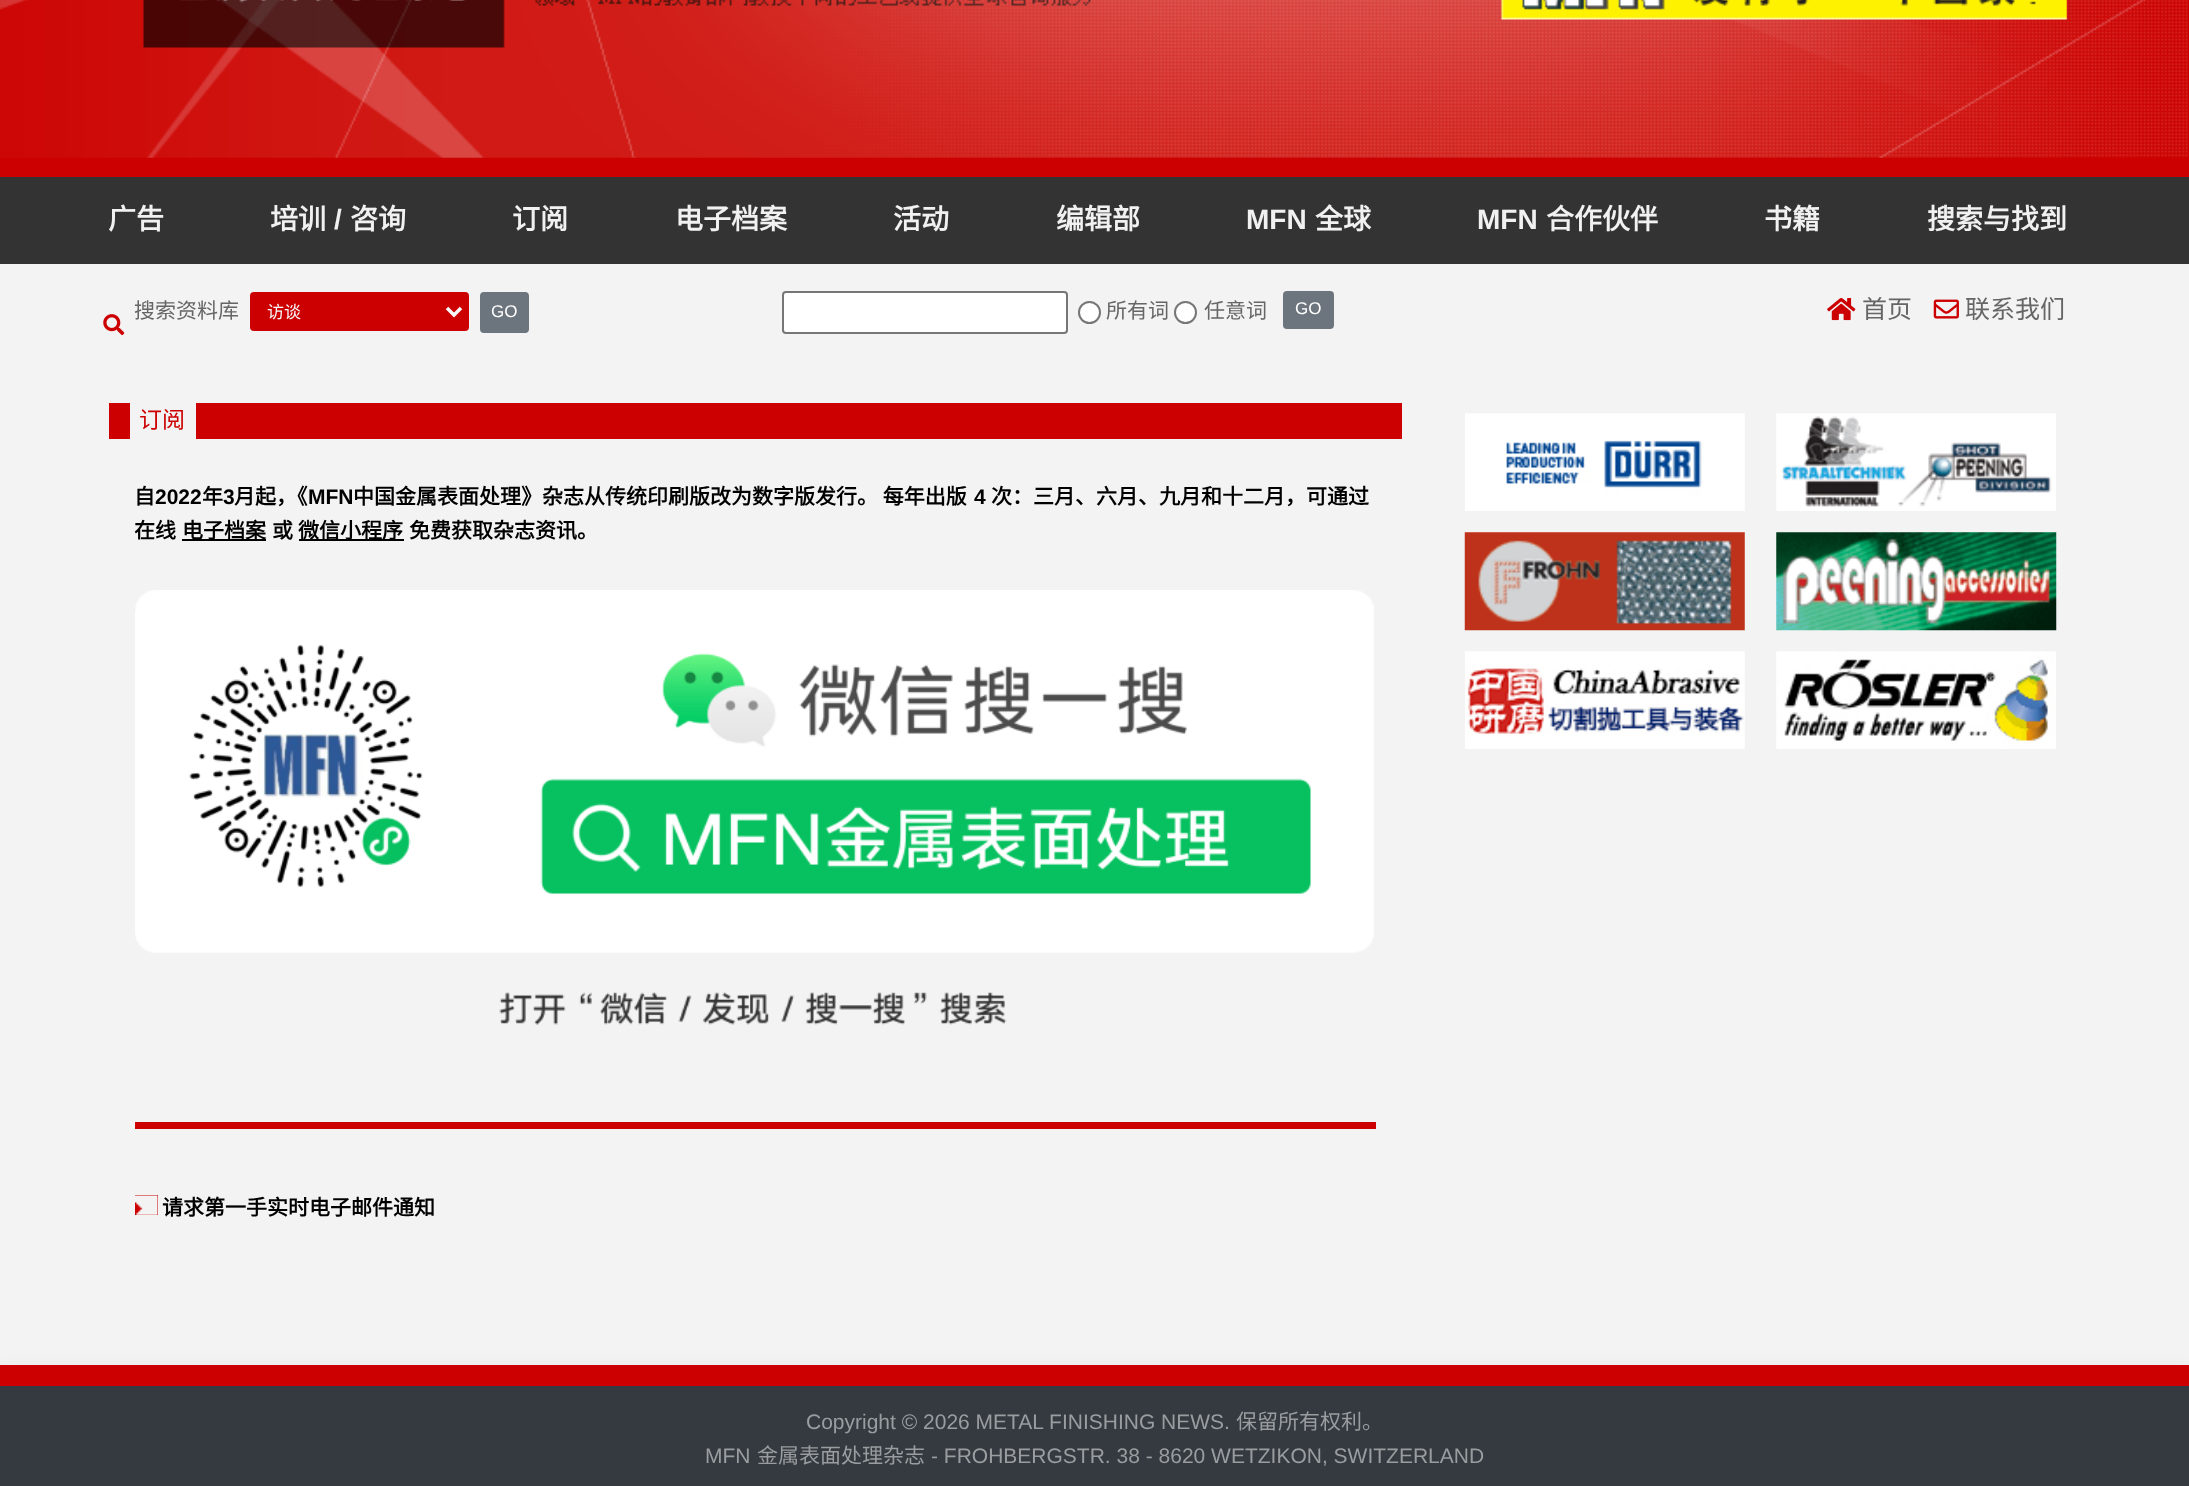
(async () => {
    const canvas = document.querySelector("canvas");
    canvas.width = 2189;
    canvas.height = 1486;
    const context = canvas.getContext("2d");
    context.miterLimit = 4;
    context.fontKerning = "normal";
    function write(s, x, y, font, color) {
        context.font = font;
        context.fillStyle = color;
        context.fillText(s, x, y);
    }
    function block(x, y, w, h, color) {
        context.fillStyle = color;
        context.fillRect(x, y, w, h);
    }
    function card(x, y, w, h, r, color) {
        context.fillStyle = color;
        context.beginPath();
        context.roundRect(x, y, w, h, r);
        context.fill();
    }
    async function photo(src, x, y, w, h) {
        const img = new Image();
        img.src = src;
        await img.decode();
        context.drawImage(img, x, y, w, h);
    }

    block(0, 0, 2189, 1486, "rgb(243, 243, 243)");
    block(0, 0, 2189, 177, "rgb(204, 0, 0)");
    await photo("media/1.png", 0, 0, 2188, 158);
    await photo("media/2.png", 1501, 0, 566, 20);
    block(0, 177, 2189, 87, "rgb(51, 51, 51)");
    write("广告", 108, 229, "bold 28px Noto Sans CJK SC", "rgb(241, 241, 241)");
    write("培训", 270, 229, "bold 28px Noto Sans CJK SC", "rgb(241, 241, 241)");
    write("/", 334, 229, "bold 28px Liberation Sans", "rgb(241, 241, 241)");
    write("咨询", 350, 229, "bold 28px Noto Sans CJK SC", "rgb(241, 241, 241)");
    write("订阅", 512, 229, "bold 28px Noto Sans CJK SC", "rgb(241, 241, 241)");
    write("电子档案", 675, 229, "bold 28px Noto Sans CJK SC", "rgb(241, 241, 241)");
    write("活动", 893, 229, "bold 28px Noto Sans CJK SC", "rgb(241, 241, 241)");
    write("编辑部", 1056, 229, "bold 28px Noto Sans CJK SC", "rgb(241, 241, 241)");
    write("MFN", 1246, 229, "bold 28px Liberation Sans", "rgb(241, 241, 241)");
    write("全球", 1315, 229, "bold 28px Noto Sans CJK SC", "rgb(241, 241, 241)");
    write("MFN", 1477, 229, "bold 28px Liberation Sans", "rgb(241, 241, 241)");
    write("合作伙伴", 1546, 229, "bold 28px Noto Sans CJK SC", "rgb(241, 241, 241)");
    write("书籍", 1764, 229, "bold 28px Noto Sans CJK SC", "rgb(241, 241, 241)");
    write("搜索与找到", 1927, 229, "bold 28px Noto Sans CJK SC", "rgb(241, 241, 241)");
    write("搜索资料库", 134, 318, "21px Noto Sans CJK SC", "rgb(102, 102, 102)");
    card(250, 292, 219, 39, 4, "rgb(204, 0, 0)");
    context.beginPath();
    context.moveTo(447, 308);
    context.lineTo(454, 315);
    context.lineTo(461, 308);
    context.strokeStyle = "rgb(248, 249, 250)";
    context.lineWidth = 3.5;
    context.stroke();
    write("访谈", 267, 318, "17px Noto Sans CJK SC", "rgb(248, 249, 250)");
    context.fillStyle = "rgb(108, 117, 125)";
    context.beginPath();
    context.roundRect(481, 293, 47, 39, 3);
    context.fill();
    context.strokeStyle = "rgb(108, 117, 125)";
    context.lineWidth = 2;
    context.stroke();
    write("GO", 491, 317, "17px Liberation Sans", "rgb(255, 255, 255)");
    await photo("media/3.png", 103, 314, 22, 22);
    context.beginPath();
    context.roundRect(783, 292, 284, 41, 3);
    context.fill();
    context.strokeStyle = "rgb(118, 118, 118)";
    context.stroke();
    context.beginPath();
    context.arc(1089.5, 312.5, 10.5, 0, Math.PI * 2);
    context.fill();
    context.stroke();
    write("所有词", 1106, 318, "21px Noto Sans CJK SC", "rgb(102, 102, 102)");
    context.fillStyle = "rgb(255, 255, 255)";
    context.beginPath();
    context.arc(1185.5, 312.5, 10.5, 0, Math.PI * 2);
    context.fill();
    context.stroke();
    write("任意词", 1204, 318, "21px Noto Sans CJK SC", "rgb(102, 102, 102)");
    context.fillStyle = "rgb(108, 117, 125)";
    context.beginPath();
    context.roundRect(1284, 292, 49, 36, 3);
    context.fill();
    context.strokeStyle = "rgb(108, 117, 125)";
    context.stroke();
    write("GO", 1295, 314, "17px Liberation Sans", "rgb(255, 255, 255)");
    await photo("media/4.png", 1827, 298, 29, 23);
    write("首页", 1862, 318, "25px Noto Sans CJK SC", "rgb(102, 102, 102)");
    await photo("media/5.png", 1933, 299, 26, 20);
    write("联系我们", 1965, 318, "25px Noto Sans CJK SC", "rgb(102, 102, 102)");
    block(109, 403, 1293, 36, "rgb(204, 0, 0)");
    block(130, 403, 66, 36, "rgb(243, 243, 243)");
    write("订阅", 139, 428, "23px Noto Sans CJK SC", "rgb(204, 0, 0)");
    write("自", 134, 504, "bold 21px Noto Sans CJK SC", "rgb(0, 0, 0)");
    write("2022", 155, 504, "bold 21px Liberation Sans", "rgb(0, 0, 0)");
    write("年", 202, 504, "bold 21px Noto Sans CJK SC", "rgb(0, 0, 0)");
    write("3", 223, 504, "bold 21px Liberation Sans", "rgb(0, 0, 0)");
    write("月起，《", 234, 504, "bold 21px Noto Sans CJK SC", "rgb(0, 0, 0)");
    write("MFN", 308, 504, "bold 21px Liberation Sans", "rgb(0, 0, 0)");
    write("中国金属表面处理》杂志从传统印刷版改为数字版发行。 每年出版", 353, 504, "bold 21px Noto Sans CJK SC", "rgb(0, 0, 0)");
    write("4", 974, 504, "bold 21px Liberation Sans", "rgb(0, 0, 0)");
    write("次：三月、六月、九月和十二月，可通过", 991, 504, "bold 21px Noto Sans CJK SC", "rgb(0, 0, 0)");
    write("在线", 134, 538, "bold 21px Noto Sans CJK SC", "rgb(0, 0, 0)");
    block(182, 539, 84, 2, "rgb(0, 0, 0)");
    write("电子档案", 182, 538, "bold 21px Noto Sans CJK SC", "rgb(0, 0, 0)");
    write("或", 272, 538, "bold 21px Noto Sans CJK SC", "rgb(0, 0, 0)");
    block(299, 539, 105, 2, "rgb(0, 0, 0)");
    write("微信小程序", 298, 538, "bold 21px Noto Sans CJK SC", "rgb(0, 0, 0)");
    write("免费获取杂志资讯。", 409, 538, "bold 21px Noto Sans CJK SC", "rgb(0, 0, 0)");
    await photo("media/6.png", 135, 590, 1239, 435);
    block(135, 1122, 1241, 7, "rgb(204, 0, 0)");
    block(135, 1195, 23, 20, "rgb(204, 0, 0)");
    await photo("media/7.png", 135, 1195, 23, 20);
    write("请求第一手实时电子邮件通知", 162, 1215, "bold 21px Noto Sans CJK SC", "rgb(0, 0, 0)");
    await photo("media/8.png", 1465, 413, 280, 98);
    await photo("media/9.png", 1776, 413, 280, 98);
    await photo("media/10.png", 1464, 532, 281, 99);
    await photo("media/11.png", 1776, 532, 281, 99);
    await photo("media/12.png", 1465, 651, 280, 98);
    await photo("media/13.png", 1776, 651, 280, 98);
    context.fillStyle = "rgba(0, 0, 0, 0.15)";
    context.filter = "blur(10.5px)";
    context.beginPath();
    context.rect(0, 1376, 2189, 21);
    context.fill();
    context.filter = "none";
    block(0, 1365, 2189, 21, "rgb(204, 0, 0)");
    block(0, 1386, 2189, 100, "rgb(52, 58, 64)");
    write("Copyright © 2026 METAL FINISHING NEWS.", 806, 1429, "21px Liberation Sans", "rgb(154, 157, 160)");
    write("保留所有权利。", 1236, 1429, "21px Noto Sans CJK SC", "rgb(154, 157, 160)");
    write("MFN", 705, 1463, "21px Liberation Sans", "rgb(154, 157, 160)");
    write("金属表面处理杂志", 757, 1463, "21px Noto Sans CJK SC", "rgb(154, 157, 160)");
    write("- FROHBERGSTR. 38 - 8620 WETZIKON, SWITZERLAND", 931, 1463, "21px Liberation Sans", "rgb(154, 157, 160)");
})();
